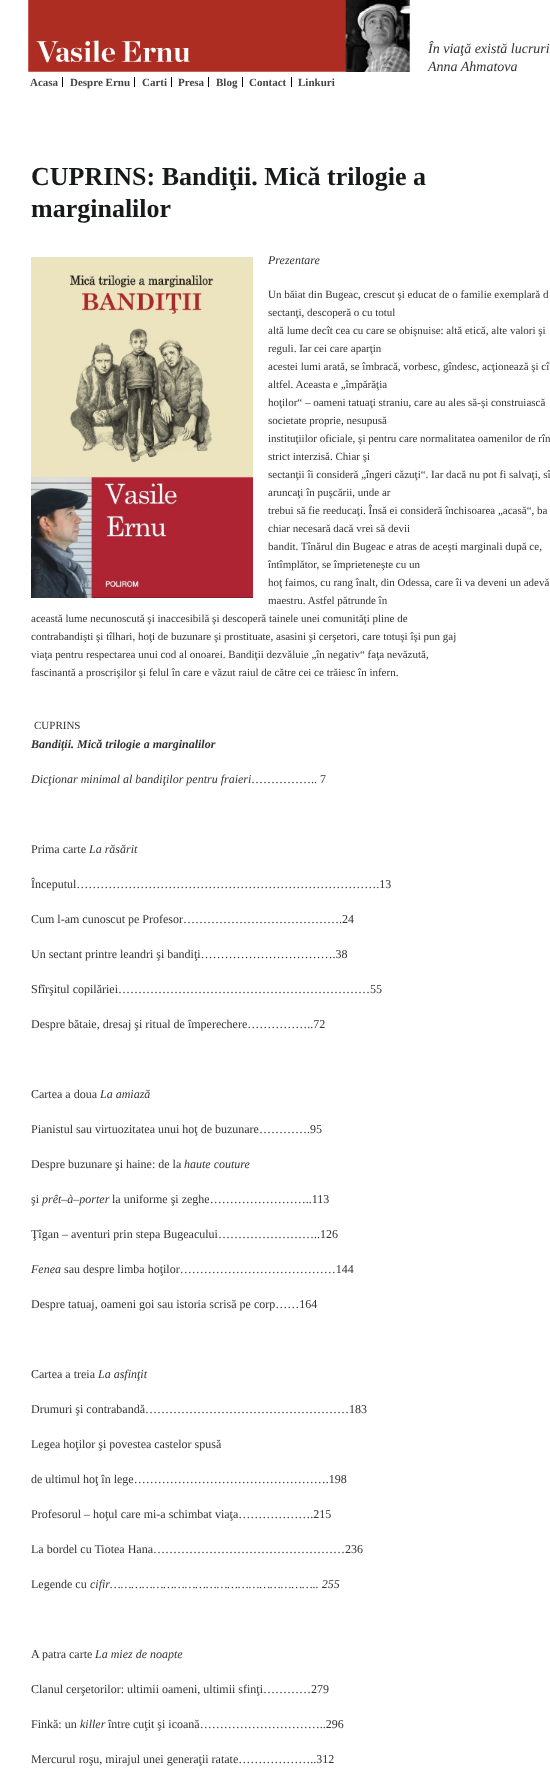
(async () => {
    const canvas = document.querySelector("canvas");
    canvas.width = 550;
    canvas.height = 1776;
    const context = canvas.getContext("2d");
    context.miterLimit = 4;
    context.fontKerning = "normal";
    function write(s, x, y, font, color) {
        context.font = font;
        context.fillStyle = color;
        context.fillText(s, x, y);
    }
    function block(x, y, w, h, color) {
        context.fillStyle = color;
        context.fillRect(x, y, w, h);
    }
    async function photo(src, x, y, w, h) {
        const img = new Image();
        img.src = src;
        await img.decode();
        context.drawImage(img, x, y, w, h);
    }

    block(0, 0, 550, 1776, "rgb(255, 255, 255)");
    await photo("media/1.png", 28, 0, 384, 72);
    write("În viaţă există lucruri", 428, 53, "italic 14px Liberation Serif", "rgb(50, 50, 50)");
    write("Anna Ahmatova", 428, 71, "italic 14px Liberation Serif", "rgb(50, 50, 50)");
    write("Acasa", 30, 86, "bold 11px Liberation Serif", "rgb(68, 68, 68)");
    block(62, 77, 1, 10, "rgb(1, 1, 1)");
    write("Despre Ernu", 70, 86, "bold 11px Liberation Serif", "rgb(68, 68, 68)");
    block(134, 77, 1, 10, "rgb(1, 1, 1)");
    write("Carti", 142, 86, "bold 11px Liberation Serif", "rgb(68, 68, 68)");
    block(171, 77, 1, 10, "rgb(1, 1, 1)");
    write("Presa", 178, 86, "bold 11px Liberation Serif", "rgb(68, 68, 68)");
    block(208, 77, 1, 10, "rgb(1, 1, 1)");
    write("Blog", 216, 86, "bold 11px Liberation Serif", "rgb(68, 68, 68)");
    block(242, 77, 1, 10, "rgb(1, 1, 1)");
    write("Contact", 249, 86, "bold 11px Liberation Serif", "rgb(68, 68, 68)");
    block(291, 77, 1, 10, "rgb(1, 1, 1)");
    write("Linkuri", 298, 86, "bold 11px Liberation Serif", "rgb(68, 68, 68)");
    write("CUPRINS: Bandiţii. Mică trilogie a", 31, 185, "bold 26px Liberation Serif", "rgb(24, 26, 25)");
    write("marginalilor", 31, 217, "bold 26px Liberation Serif", "rgb(24, 26, 25)");
    await photo("media/2.png", 31, 257, 222, 341);
    write("Prezentare", 268, 264, "italic 12px Liberation Serif", "rgb(50, 50, 50)");
    write("Un băiat din Bugeac, crescut şi educat de o familie exemplară d", 268, 298, "11px Liberation Serif", "rgb(50, 50, 50)");
    write("sectanţi, descoperă o cu totul", 268, 316, "11px Liberation Serif", "rgb(50, 50, 50)");
    write("altă lume decît cea cu care se obişnuise: altă etică, alte valori şi", 268, 334, "11px Liberation Serif", "rgb(50, 50, 50)");
    write("reguli. Iar cei care aparţin", 268, 352, "11px Liberation Serif", "rgb(50, 50, 50)");
    write("acestei lumi arată, se îmbracă, vorbesc, gîndesc, acţionează şi cî", 268, 370, "11px Liberation Serif", "rgb(50, 50, 50)");
    write("altfel. Aceasta e „împărăţia", 268, 388, "11px Liberation Serif", "rgb(50, 50, 50)");
    write("hoţilor“ – oameni tatuaţi straniu, care au ales să-şi construiască", 268, 406, "11px Liberation Serif", "rgb(50, 50, 50)");
    write("societate proprie, nesupusă", 268, 424, "11px Liberation Serif", "rgb(50, 50, 50)");
    write("instituţiilor oficiale, şi pentru care normalitatea oamenilor de rîn", 268, 442, "11px Liberation Serif", "rgb(50, 50, 50)");
    write("strict interzisă. Chiar şi", 268, 460, "11px Liberation Serif", "rgb(50, 50, 50)");
    write("sectanţii îi consideră „îngeri căzuţi“. Iar dacă nu pot fi salvaţi, sî", 268, 478, "11px Liberation Serif", "rgb(50, 50, 50)");
    write("aruncaţi în puşcării, unde ar", 268, 496, "11px Liberation Serif", "rgb(50, 50, 50)");
    write("trebui să fie reeducaţi. Însă ei consideră închisoarea „acasă“, ba", 268, 514, "11px Liberation Serif", "rgb(50, 50, 50)");
    write("chiar necesară dacă vrei să devii", 268, 532, "11px Liberation Serif", "rgb(50, 50, 50)");
    write("bandit. Tînărul din Bugeac e atras de aceşti marginali după ce,", 268, 550, "11px Liberation Serif", "rgb(50, 50, 50)");
    write("întîmplător, se împrieteneşte cu un", 268, 568, "11px Liberation Serif", "rgb(50, 50, 50)");
    write("hoţ faimos, cu rang înalt, din Odessa, care îi va deveni un adevă", 268, 586, "11px Liberation Serif", "rgb(50, 50, 50)");
    write("maestru. Astfel pătrunde în", 268, 604, "11px Liberation Serif", "rgb(50, 50, 50)");
    write("această lume necunoscută şi inaccesibilă şi descoperă tainele unei comunităţi pline de", 31, 622, "11px Liberation Serif", "rgb(50, 50, 50)");
    write("contrabandişti şi tîlhari, hoţi de buzunare şi prostituate, asasini şi cerşetori, care totuşi îşi pun gaj", 31, 640, "11px Liberation Serif", "rgb(50, 50, 50)");
    write("viaţa pentru respectarea unui cod al onoarei. Bandiţii dezvăluie „în negativ“ faţa nevăzută,", 31, 658, "11px Liberation Serif", "rgb(50, 50, 50)");
    write("fascinantă a proscrişilor şi felul în care e văzut raiul de către cei ce trăiesc în infern.", 31, 676, "11px Liberation Serif", "rgb(50, 50, 50)");
    write("CUPRINS", 34, 729, "11px Liberation Serif", "rgb(50, 50, 50)");
    write("Bandiţii. Mică trilogie a marginalilor", 31, 748, "italic bold 12px Liberation Serif", "rgb(50, 50, 50)");
    write("Dicţionar minimal al bandiţilor pentru fraieri", 31, 783, "italic 12px Liberation Serif", "rgb(50, 50, 50)");
    write("…………….. 7", 251, 783, "12px Liberation Serif", "rgb(50, 50, 50)");
    write("Prima carte", 31, 853, "12px Liberation Serif", "rgb(50, 50, 50)");
    write("La răsărit", 89, 853, "italic 12px Liberation Serif", "rgb(50, 50, 50)");
    write("Începutul………………………………………………………………….13", 31, 888, "12px Liberation Serif", "rgb(50, 50, 50)");
    write("Cum l-am cunoscut pe Profesor………………………………….24", 31, 923, "12px Liberation Serif", "rgb(50, 50, 50)");
    write("Un sectant printre leandri şi bandiţi…………………………….38", 31, 958, "12px Liberation Serif", "rgb(50, 50, 50)");
    write("Sfîrşitul copilăriei………………………………………………………55", 31, 993, "12px Liberation Serif", "rgb(50, 50, 50)");
    write("Despre bătaie, dresaj şi ritual de împerechere……………..72", 31, 1028, "12px Liberation Serif", "rgb(50, 50, 50)");
    write("Cartea a doua", 31, 1098, "12px Liberation Serif", "rgb(50, 50, 50)");
    write("La amiază", 100, 1098, "italic 12px Liberation Serif", "rgb(50, 50, 50)");
    write("Pianistul sau virtuozitatea unui hoţ de buzunare………….95", 31, 1133, "12px Liberation Serif", "rgb(50, 50, 50)");
    write("Despre buzunare şi haine: de la", 31, 1168, "12px Liberation Serif", "rgb(50, 50, 50)");
    write("haute couture", 184, 1168, "italic 12px Liberation Serif", "rgb(50, 50, 50)");
    write("şi", 31, 1203, "12px Liberation Serif", "rgb(50, 50, 50)");
    write("prêt–à–porter", 42, 1203, "italic 12px Liberation Serif", "rgb(50, 50, 50)");
    write("la uniforme şi zeghe……………………..113", 112, 1203, "12px Liberation Serif", "rgb(50, 50, 50)");
    write("Ţîgan – aventuri prin stepa Bugeacului……………………..126", 31, 1238, "12px Liberation Serif", "rgb(50, 50, 50)");
    write("Fenea", 31, 1273, "italic 12px Liberation Serif", "rgb(50, 50, 50)");
    write("sau despre limba hoţilor…………………………………144", 64, 1273, "12px Liberation Serif", "rgb(50, 50, 50)");
    write("Despre tatuaj, oameni goi sau istoria scrisă pe corp……164", 31, 1308, "12px Liberation Serif", "rgb(50, 50, 50)");
    write("Cartea a treia", 31, 1378, "12px Liberation Serif", "rgb(50, 50, 50)");
    write("La asfinţit", 98, 1378, "italic 12px Liberation Serif", "rgb(50, 50, 50)");
    write("Drumuri şi contrabandă……………………………………………183", 31, 1413, "12px Liberation Serif", "rgb(50, 50, 50)");
    write("Legea hoţilor şi povestea castelor spusă", 31, 1448, "12px Liberation Serif", "rgb(50, 50, 50)");
    write("de ultimul hoţ în lege………………………………………….198", 31, 1483, "12px Liberation Serif", "rgb(50, 50, 50)");
    write("Profesorul – hoţul care mi-a schimbat viaţa……………….215", 31, 1518, "12px Liberation Serif", "rgb(50, 50, 50)");
    write("La bordel cu Tiotea Hana…………………………………………236", 31, 1553, "12px Liberation Serif", "rgb(50, 50, 50)");
    write("Legende cu", 31, 1588, "12px Liberation Serif", "rgb(50, 50, 50)");
    write("cifir………………………………………………….. 255", 90, 1588, "italic 12px Liberation Serif", "rgb(50, 50, 50)");
    write("A patra carte", 31, 1658, "12px Liberation Serif", "rgb(50, 50, 50)");
    write("La miez de noapte", 95, 1658, "italic 12px Liberation Serif", "rgb(50, 50, 50)");
    write("Clanul cerşetorilor: ultimii oameni, ultimii sfinţi…………279", 31, 1693, "12px Liberation Serif", "rgb(50, 50, 50)");
    write("Finkă: un", 31, 1728, "12px Liberation Serif", "rgb(50, 50, 50)");
    write("killer", 80, 1728, "italic 12px Liberation Serif", "rgb(50, 50, 50)");
    write("între cuţit şi icoană…………………………..296", 108, 1728, "12px Liberation Serif", "rgb(50, 50, 50)");
    write("Mercurul roşu, mirajul unei generaţii ratate………………..312", 31, 1763, "12px Liberation Serif", "rgb(50, 50, 50)");
})();
